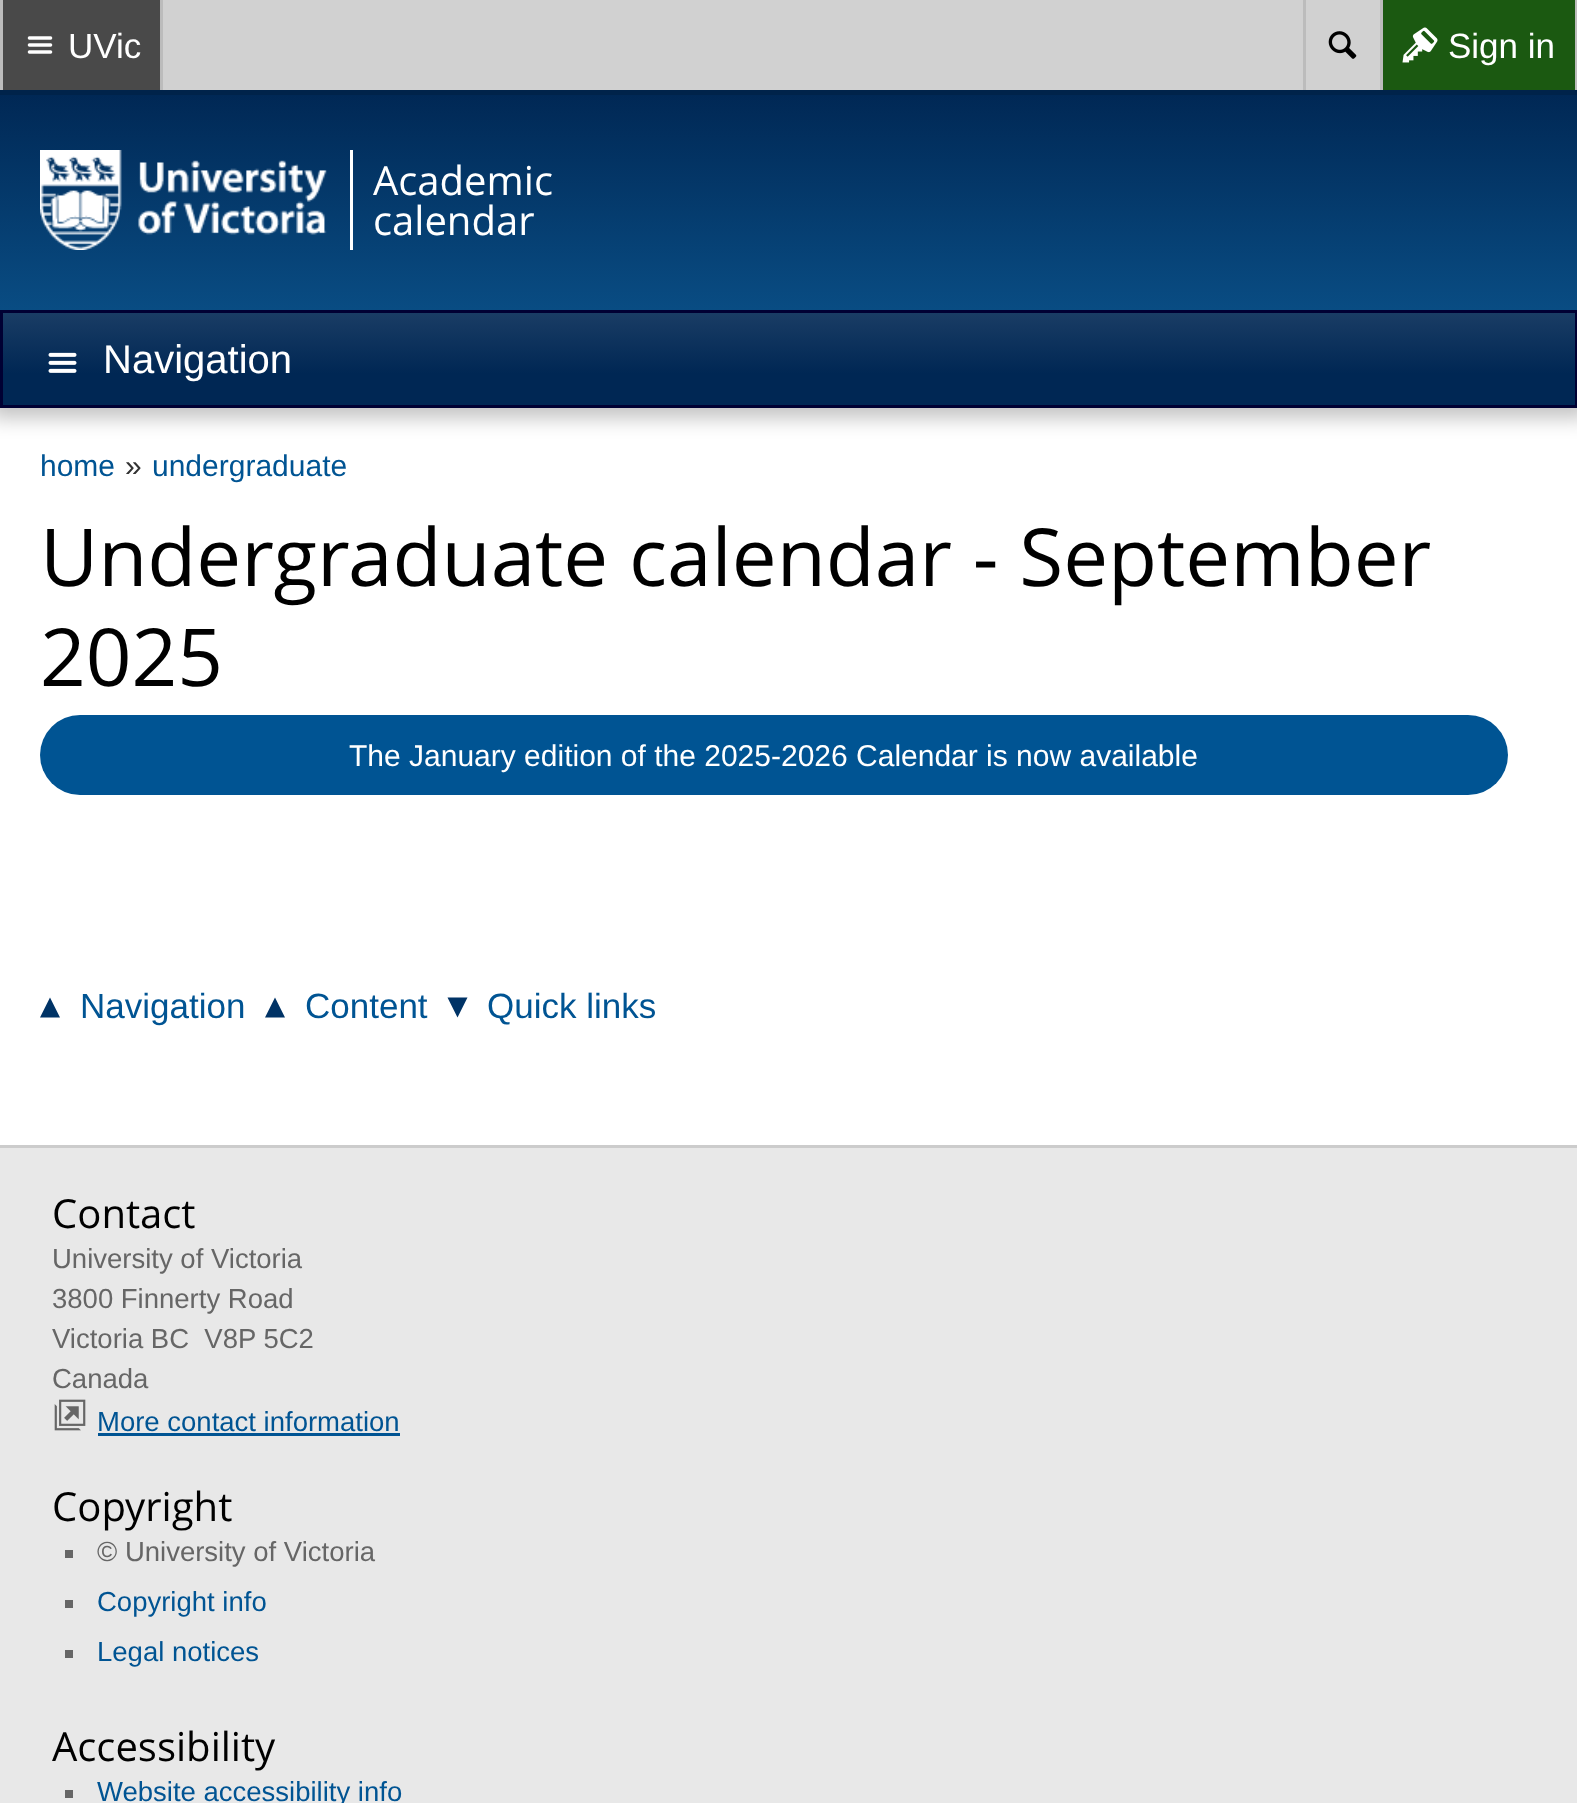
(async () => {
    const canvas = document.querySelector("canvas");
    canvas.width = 1577;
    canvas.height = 1803;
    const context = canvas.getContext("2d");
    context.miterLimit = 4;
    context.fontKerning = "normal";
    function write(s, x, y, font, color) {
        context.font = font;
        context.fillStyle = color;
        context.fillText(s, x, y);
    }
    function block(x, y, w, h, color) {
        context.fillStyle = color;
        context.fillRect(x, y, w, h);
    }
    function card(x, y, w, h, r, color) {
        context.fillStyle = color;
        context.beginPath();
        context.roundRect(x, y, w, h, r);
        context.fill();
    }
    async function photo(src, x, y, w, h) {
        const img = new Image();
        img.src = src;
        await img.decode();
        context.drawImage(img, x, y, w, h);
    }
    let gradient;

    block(0, 0, 1577, 1803, "rgb(255, 255, 255)");
    context.fillStyle = "rgba(0, 0, 0, 0.24)";
    context.filter = "blur(10px)";
    context.beginPath();
    context.rect(-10, 80, 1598, 338);
    context.fill();
    context.filter = "none";
    context.strokeStyle = "rgb(0, 35, 74)";
    context.lineWidth = 5;
    context.strokeRect(-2.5, -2.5, 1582, 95);
    block(163, 0, 1217, 90, "rgb(209, 209, 209)");
    block(3, 0, 157, 90, "rgb(73, 73, 73)");
    block(160, 0, 3, 90, "rgb(188, 188, 188)");
    block(0, 0, 3, 90, "rgb(188, 188, 188)");
    await photo("media/1.png", 27, 36, 26, 18);
    write("UVic", 68, 58, "35px Liberation Sans", "rgb(255, 255, 255)");
    block(1303, 0, 3, 90, "rgb(188, 188, 188)");
    await photo("media/2.png", 1328, 31, 29, 28);
    block(1383, 0, 192, 90, "rgb(27, 89, 17)");
    block(1575, 0, 2, 90, "rgb(188, 188, 188)");
    block(1380, 0, 3, 90, "rgb(188, 188, 188)");
    await photo("media/3.png", 1402, 27, 36, 36);
    write("Sign in", 1448, 58, "35px Liberation Sans", "rgb(255, 255, 255)");
    gradient = context.createLinearGradient(789, 90, 789, 408);
    gradient.addColorStop(0, "rgb(0, 39, 84)");
    gradient.addColorStop(1, "rgb(13, 93, 152)");
    context.fillStyle = gradient;
    context.fillRect(0, 95, 1577, 215);
    await photo("media/4.png", 40, 150, 287, 100);
    block(350, 150, 3, 100, "rgb(255, 255, 255)");
    write("Academic", 373, 195, "40px Open Sans", "rgb(255, 255, 255)");
    write("calendar", 373, 235, "40px Open Sans", "rgb(255, 255, 255)");
    gradient = context.createLinearGradient(789, 312, 789, 405);
    gradient.addColorStop(0, "rgb(26, 61, 101)");
    gradient.addColorStop(0.66, "rgb(0, 39, 84)");
    context.fillStyle = gradient;
    context.fillRect(3, 313, 1572, 92);
    context.strokeStyle = "rgb(0, 0, 51)";
    context.lineWidth = 3;
    context.strokeRect(1.5, 311.5, 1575, 95);
    await photo("media/5.png", 48, 352, 29, 21);
    write("Navigation", 103, 373, "40px Liberation Sans", "rgb(255, 255, 255)");
    write("home", 40, 476, "30px Liberation Sans", "rgb(0, 84, 147)");
    write("»", 125, 476, "30px Liberation Sans", "rgb(51, 51, 51)");
    write("undergraduate", 152, 476, "30px Liberation Sans", "rgb(0, 84, 147)");
    write("Undergraduate calendar - September", 40, 586, "80px Open Sans", "rgb(0, 0, 0)");
    write("2025", 40, 686, "80px Open Sans", "rgb(0, 0, 0)");
    card(40, 715, 1468, 80, 40, "rgb(0, 84, 147)");
    write("The January edition of the 2025-2026 Calendar is now available", 349, 766, "30px Liberation Sans", "rgb(255, 255, 255)");
    context.fillStyle = "rgb(0, 51, 102)";
    context.beginPath();
    context.moveTo(60, 1017.5);
    context.lineTo(40, 1017.5);
    context.lineTo(50, 997.5);
    context.closePath();
    context.fill();
    write("Navigation", 80, 1018, "35px Liberation Sans", "rgb(0, 84, 147)");
    context.fillStyle = "rgb(0, 51, 102)";
    context.beginPath();
    context.moveTo(285, 1017.5);
    context.lineTo(265, 1017.5);
    context.lineTo(275, 997.5);
    context.closePath();
    context.fill();
    write("Content", 305, 1018, "35px Liberation Sans", "rgb(0, 84, 147)");
    context.fillStyle = "rgb(0, 51, 102)";
    context.beginPath();
    context.moveTo(447.5, 997.5);
    context.lineTo(467.5, 997.5);
    context.lineTo(457.5, 1017.5);
    context.closePath();
    context.fill();
    write("Quick links", 487, 1018, "35px Liberation Sans", "rgb(0, 84, 147)");
    block(0, 1148, 1577, 655, "rgb(232, 232, 232)");
    block(0, 1145, 1577, 3, "rgb(204, 204, 204)");
    write("Contact", 52, 1228, "40px Open Sans", "rgb(0, 0, 0)");
    write("University of Victoria", 52, 1268, "27.5px Liberation Sans", "rgb(102, 102, 102)");
    write("3800 Finnerty Road", 52, 1308, "27.5px Liberation Sans", "rgb(102, 102, 102)");
    write("Victoria BC  V8P 5C2", 52, 1348, "27.5px Liberation Sans", "rgb(102, 102, 102)");
    write("Canada", 52, 1388, "27.5px Liberation Sans", "rgb(102, 102, 102)");
    await photo("media/6.png", 54, 1399, 32, 32);
    write("More contact information", 97, 1431, "27.5px Liberation Sans", "rgb(0, 84, 147)");
    block(98, 1433, 302, 3, "rgb(0, 84, 147)");
    write("Copyright", 52, 1521, "40px Open Sans", "rgb(0, 0, 0)");
    block(65, 1550, 8, 8, "rgb(102, 102, 102)");
    write("© University of Victoria", 97, 1561, "27.5px Liberation Sans", "rgb(102, 102, 102)");
    block(65, 1600, 8, 8, "rgb(102, 102, 102)");
    write("Copyright info", 97, 1611, "27.5px Liberation Sans", "rgb(0, 84, 147)");
    block(65, 1650, 8, 8, "rgb(102, 102, 102)");
    write("Legal notices", 97, 1661, "27.5px Liberation Sans", "rgb(0, 84, 147)");
    write("Accessibility", 52, 1761, "40px Open Sans", "rgb(0, 0, 0)");
    block(65, 1790, 8, 8, "rgb(102, 102, 102)");
    write("Website accessibility info", 97, 1801, "27.5px Liberation Sans", "rgb(0, 84, 147)");
})();
